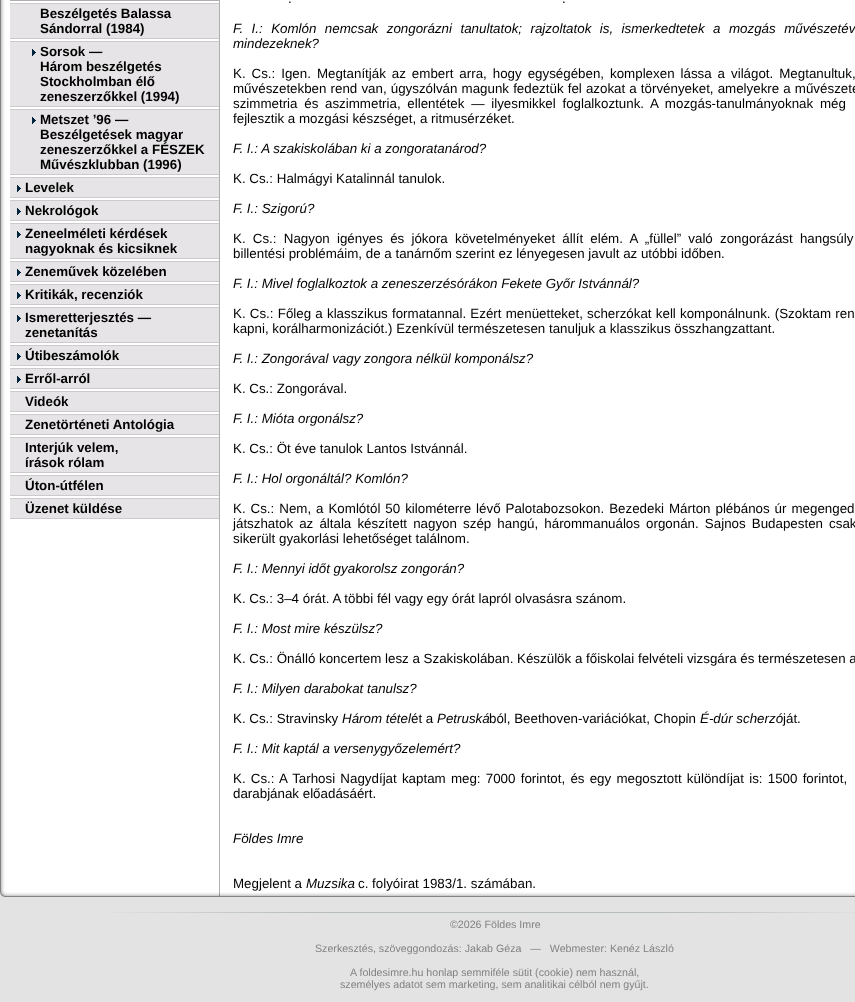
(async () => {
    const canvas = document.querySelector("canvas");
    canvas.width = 855;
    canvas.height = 1002;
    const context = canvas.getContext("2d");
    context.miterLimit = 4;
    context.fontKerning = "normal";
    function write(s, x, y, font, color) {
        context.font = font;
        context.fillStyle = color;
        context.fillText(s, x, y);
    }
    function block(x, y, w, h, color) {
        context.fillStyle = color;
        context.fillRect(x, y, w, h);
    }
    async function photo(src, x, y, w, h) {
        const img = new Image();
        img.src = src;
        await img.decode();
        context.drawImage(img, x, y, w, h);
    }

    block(0, 0, 855, 1002, "rgb(228, 227, 228)");
    block(5, 0, 850, 891, "rgb(255, 255, 255)");
    await photo("media/1.png", 0, 0, 5, 891);
    block(219, 0, 1, 891, "rgb(175, 174, 175)");
    await photo("media/2.png", 10, 0, 210, 2);
    block(10, 4, 209, 34, "rgb(230, 228, 230)");
    await photo("media/3.png", 10, 2, 209, 2);
    await photo("media/4.png", 10, 38, 209, 2);
    write("Beszélgetés Balassa", 40, 18, "bold 13.35px Liberation Sans", "rgb(0, 0, 0)");
    write("Sándorral (1984)", 40, 33, "bold 13.35px Liberation Sans", "rgb(0, 0, 0)");
    block(10, 42, 209, 64, "rgb(230, 228, 230)");
    await photo("media/3.png", 10, 40, 209, 2);
    await photo("media/4.png", 10, 106, 209, 2);
    await photo("media/5.png", 32, 49, 4, 7);
    write("Sorsok —", 40, 56, "bold 13.35px Liberation Sans", "rgb(0, 0, 0)");
    write("Három beszélgetés", 40, 71, "bold 13.35px Liberation Sans", "rgb(0, 0, 0)");
    write("Stockholmban élő", 40, 86, "bold 13.35px Liberation Sans", "rgb(0, 0, 0)");
    write("zeneszerzőkkel (1994)", 40, 101, "bold 13.35px Liberation Sans", "rgb(0, 0, 0)");
    block(10, 110, 209, 64, "rgb(230, 228, 230)");
    await photo("media/3.png", 10, 108, 209, 2);
    await photo("media/4.png", 10, 174, 209, 2);
    await photo("media/5.png", 32, 117, 4, 7);
    write("Metszet ’96 —", 40, 124, "bold 13.35px Liberation Sans", "rgb(0, 0, 0)");
    write("Beszélgetések magyar", 40, 139, "bold 13.35px Liberation Sans", "rgb(0, 0, 0)");
    write("zeneszerzőkkel a FÉSZEK", 40, 154, "bold 13.35px Liberation Sans", "rgb(0, 0, 0)");
    write("Művészklubban (1996)", 40, 169, "bold 13.35px Liberation Sans", "rgb(0, 0, 0)");
    block(10, 178, 209, 19, "rgb(230, 228, 230)");
    await photo("media/3.png", 10, 176, 209, 2);
    await photo("media/4.png", 10, 197, 209, 2);
    await photo("media/5.png", 17, 185, 4, 7);
    write("Levelek", 25, 192, "bold 13.35px Liberation Sans", "rgb(0, 0, 0)");
    block(10, 201, 209, 19, "rgb(230, 228, 230)");
    await photo("media/3.png", 10, 199, 209, 2);
    await photo("media/4.png", 10, 220, 209, 2);
    await photo("media/5.png", 17, 208, 4, 7);
    write("Nekrológok", 25, 215, "bold 13.35px Liberation Sans", "rgb(0, 0, 0)");
    block(10, 224, 209, 34, "rgb(230, 228, 230)");
    await photo("media/3.png", 10, 222, 209, 2);
    await photo("media/4.png", 10, 258, 209, 2);
    await photo("media/5.png", 17, 231, 4, 7);
    write("Zeneelméleti kérdések", 25, 238, "bold 13.35px Liberation Sans", "rgb(0, 0, 0)");
    write("nagyoknak és kicsiknek", 25, 253, "bold 13.35px Liberation Sans", "rgb(0, 0, 0)");
    block(10, 262, 209, 19, "rgb(230, 228, 230)");
    await photo("media/3.png", 10, 260, 209, 2);
    await photo("media/4.png", 10, 281, 209, 2);
    await photo("media/5.png", 17, 269, 4, 7);
    write("Zeneművek közelében", 25, 276, "bold 13.35px Liberation Sans", "rgb(0, 0, 0)");
    block(10, 285, 209, 19, "rgb(230, 228, 230)");
    await photo("media/3.png", 10, 283, 209, 2);
    await photo("media/4.png", 10, 304, 209, 2);
    await photo("media/5.png", 17, 292, 4, 7);
    write("Kritikák, recenziók", 25, 299, "bold 13.35px Liberation Sans", "rgb(0, 0, 0)");
    block(10, 308, 209, 34, "rgb(230, 228, 230)");
    await photo("media/3.png", 10, 306, 209, 2);
    await photo("media/4.png", 10, 342, 209, 2);
    await photo("media/5.png", 17, 315, 4, 7);
    write("Ismeretterjesztés —", 25, 322, "bold 13.35px Liberation Sans", "rgb(0, 0, 0)");
    write("zenetanítás", 25, 337, "bold 13.35px Liberation Sans", "rgb(0, 0, 0)");
    block(10, 346, 209, 19, "rgb(230, 228, 230)");
    await photo("media/3.png", 10, 344, 209, 2);
    await photo("media/4.png", 10, 365, 209, 2);
    await photo("media/5.png", 17, 353, 4, 7);
    write("Útibeszámolók", 25, 360, "bold 13.35px Liberation Sans", "rgb(0, 0, 0)");
    block(10, 369, 209, 19, "rgb(230, 228, 230)");
    await photo("media/3.png", 10, 367, 209, 2);
    await photo("media/4.png", 10, 388, 209, 2);
    await photo("media/5.png", 17, 376, 4, 7);
    write("Erről-arról", 25, 383, "bold 13.35px Liberation Sans", "rgb(0, 0, 0)");
    block(10, 392, 209, 19, "rgb(230, 228, 230)");
    await photo("media/3.png", 10, 390, 209, 2);
    await photo("media/4.png", 10, 411, 209, 2);
    write("Videók", 25, 406, "bold 13.35px Liberation Sans", "rgb(0, 0, 0)");
    block(10, 415, 209, 19, "rgb(230, 228, 230)");
    await photo("media/3.png", 10, 413, 209, 2);
    await photo("media/4.png", 10, 434, 209, 2);
    write("Zenetörténeti Antológia", 25, 429, "bold 13.35px Liberation Sans", "rgb(0, 0, 0)");
    block(10, 438, 209, 34, "rgb(230, 228, 230)");
    await photo("media/3.png", 10, 436, 209, 2);
    await photo("media/4.png", 10, 472, 209, 2);
    write("Interjúk velem,", 25, 452, "bold 13.35px Liberation Sans", "rgb(0, 0, 0)");
    write("írások rólam", 25, 467, "bold 13.35px Liberation Sans", "rgb(0, 0, 0)");
    block(10, 476, 209, 19, "rgb(230, 228, 230)");
    await photo("media/3.png", 10, 474, 209, 2);
    await photo("media/4.png", 10, 495, 209, 2);
    write("Úton-útfélen", 25, 490, "bold 13.35px Liberation Sans", "rgb(0, 0, 0)");
    block(10, 499, 209, 19, "rgb(230, 228, 230)");
    await photo("media/3.png", 10, 497, 209, 2);
    await photo("media/4.png", 10, 518, 209, 2);
    write("Üzenet küldése", 25, 513, "bold 13.35px Liberation Sans", "rgb(0, 0, 0)");
    write(".", 288, 3, "13.35px Liberation Sans", "rgb(0, 0, 0)");
    write(".", 562, 3, "13.35px Liberation Sans", "rgb(0, 0, 0)");
    context.wordSpacing = "4.75px";
    write("F. I.: Komlón nemcsak zongorázni tanultatok; rajzoltatok is, ismerkedtetek a mozgás művészetév", 233, 33, "italic 13.35px Liberation Sans", "rgb(0, 0, 0)");
    context.wordSpacing = "0px";
    write("mindezeknek?", 233, 48, "italic 13.35px Liberation Sans", "rgb(0, 0, 0)");
    context.wordSpacing = "2.25px";
    write("K. Cs.: Igen. Megtanítják az embert arra, hogy egységében, komplexen lássa a világot. Megtanultuk,", 233, 78, "13.35px Liberation Sans", "rgb(0, 0, 0)");
    context.wordSpacing = "0.4px";
    write("művészetekben rend van, úgyszólván magunk fedeztük fel azokat a törvényeket, amelyekre a művészete", 233, 93, "13.35px Liberation Sans", "rgb(0, 0, 0)");
    context.wordSpacing = "3px";
    write("szimmetria és aszimmetria, ellentétek — ilyesmikkel foglalkoztunk. A mozgás-tanulmányoknak még", 233, 108, "13.35px Liberation Sans", "rgb(0, 0, 0)");
    context.wordSpacing = "0px";
    write("fejlesztik a mozgási készséget, a ritmusérzéket.", 233, 123, "13.35px Liberation Sans", "rgb(0, 0, 0)");
    write("F. I.: A szakiskolában ki a zongoratanárod?", 233, 153, "italic 13.35px Liberation Sans", "rgb(0, 0, 0)");
    write("K. Cs.: Halmágyi Katalinnál tanulok.", 233, 183, "13.35px Liberation Sans", "rgb(0, 0, 0)");
    write("F. I.: Szigorú?", 233, 213, "italic 13.35px Liberation Sans", "rgb(0, 0, 0)");
    context.wordSpacing = "3.5px";
    write("K. Cs.: Nagyon igényes és jókora követelményeket állít elém. A „füllel” való zongorázást hangsúly", 233, 243, "13.35px Liberation Sans", "rgb(0, 0, 0)");
    context.wordSpacing = "0px";
    write("billentési problémáim, de a tanárnőm szerint ez lényegesen javult az utóbbi időben.", 233, 258, "13.35px Liberation Sans", "rgb(0, 0, 0)");
    write("F. I.: Mivel foglalkoztok a zeneszerzésórákon Fekete Győr Istvánnál?", 233, 288, "italic 13.35px Liberation Sans", "rgb(0, 0, 0)");
    context.wordSpacing = "0.5px";
    write("K. Cs.: Főleg a klasszikus formatannal. Ezért menüetteket, scherzókat kell komponálnunk. (Szoktam ren", 233, 318, "13.35px Liberation Sans", "rgb(0, 0, 0)");
    context.wordSpacing = "0px";
    write("kapni, korálharmonizációt.) Ezenkívül természetesen tanuljuk a klasszikus összhangzattant.", 233, 333, "13.35px Liberation Sans", "rgb(0, 0, 0)");
    write("F. I.: Zongorával vagy zongora nélkül komponálsz?", 233, 363, "italic 13.35px Liberation Sans", "rgb(0, 0, 0)");
    write("K. Cs.: Zongorával.", 233, 393, "13.35px Liberation Sans", "rgb(0, 0, 0)");
    write("F. I.: Mióta orgonálsz?", 233, 423, "italic 13.35px Liberation Sans", "rgb(0, 0, 0)");
    write("K. Cs.: Öt éve tanulok Lantos Istvánnál.", 233, 453, "13.35px Liberation Sans", "rgb(0, 0, 0)");
    write("F. I.: Hol orgonáltál? Komlón?", 233, 483, "italic 13.35px Liberation Sans", "rgb(0, 0, 0)");
    context.wordSpacing = "1.25px";
    write("K. Cs.: Nem, a Komlótól 50 kilométerre lévő Palotabozsokon. Bezedeki Márton plébános úr megenged", 233, 513, "13.35px Liberation Sans", "rgb(0, 0, 0)");
    context.wordSpacing = "2.4px";
    write("játszhatok az általa készített nagyon szép hangú, hárommanuálos orgonán. Sajnos Budapesten csak", 233, 528, "13.35px Liberation Sans", "rgb(0, 0, 0)");
    context.wordSpacing = "0px";
    write("sikerült gyakorlási lehetőséget találnom.", 233, 543, "13.35px Liberation Sans", "rgb(0, 0, 0)");
    write("F. I.: Mennyi időt gyakorolsz zongorán?", 233, 573, "italic 13.35px Liberation Sans", "rgb(0, 0, 0)");
    write("K. Cs.: 3–4 órát. A többi fél vagy egy órát lapról olvasásra szánom.", 233, 603, "13.35px Liberation Sans", "rgb(0, 0, 0)");
    write("F. I.: Most mire készülsz?", 233, 633, "italic 13.35px Liberation Sans", "rgb(0, 0, 0)");
    write("K. Cs.: Önálló koncertem lesz a Szakiskolában. Készülök a főiskolai felvételi vizsgára és természetesen a", 233, 663, "13.35px Liberation Sans", "rgb(0, 0, 0)");
    write("F. I.: Milyen darabokat tanulsz?", 233, 693, "italic 13.35px Liberation Sans", "rgb(0, 0, 0)");
    write("K. Cs.: Stravinsky", 233, 723, "13.35px Liberation Sans", "rgb(0, 0, 0)");
    write("Három tétel", 342, 723, "italic 13.35px Liberation Sans", "rgb(0, 0, 0)");
    write("ét a", 411, 723, "13.35px Liberation Sans", "rgb(0, 0, 0)");
    write("Petruská", 437, 723, "italic 13.35px Liberation Sans", "rgb(0, 0, 0)");
    write("ból, Beethoven-variációkat, Chopin", 489, 723, "13.35px Liberation Sans", "rgb(0, 0, 0)");
    write("É-dúr scherzó", 700, 723, "italic 13.35px Liberation Sans", "rgb(0, 0, 0)");
    write("ját.", 783, 723, "13.35px Liberation Sans", "rgb(0, 0, 0)");
    write("F. I.: Mit kaptál a versenygyőzelemért?", 233, 753, "italic 13.35px Liberation Sans", "rgb(0, 0, 0)");
    context.wordSpacing = "1.5px";
    write("K. Cs.: A Tarhosi Nagydíjat kaptam meg: 7000 forintot, és egy megosztott különdíjat is: 1500 forintot,", 233, 783, "13.35px Liberation Sans", "rgb(0, 0, 0)");
    context.wordSpacing = "0px";
    write("darabjának előadásáért.", 233, 798, "13.35px Liberation Sans", "rgb(0, 0, 0)");
    write("Földes Imre", 233, 843, "italic 13.35px Liberation Sans", "rgb(0, 0, 0)");
    write("Megjelent a", 233, 888, "13.35px Liberation Sans", "rgb(0, 0, 0)");
    write("Muzsika", 306, 888, "italic 13.35px Liberation Sans", "rgb(0, 0, 0)");
    write("c. folyóirat 1983/1. számában.", 358, 888, "13.35px Liberation Sans", "rgb(0, 0, 0)");
    await photo("media/6.png", 0, 891, 855, 6);
    await photo("media/7.png", 112, 912, 743, 1);
    write("©2026 Földes Imre", 450, 928, "10.65px Liberation Sans", "rgb(130, 130, 130)");
    write("Szerkesztés, szöveggondozás: Jakab Géza   —   Webmester: Kenéz László", 315, 952, "10.65px Liberation Sans", "rgb(130, 130, 130)");
    write("A foldesimre.hu honlap semmiféle sütit (cookie) nem használ,", 350, 976, "10.65px Liberation Sans", "rgb(130, 130, 130)");
    write("személyes adatot sem marketing, sem analitikai célból nem gyűjt.", 340, 988, "10.65px Liberation Sans", "rgb(130, 130, 130)");
})();
